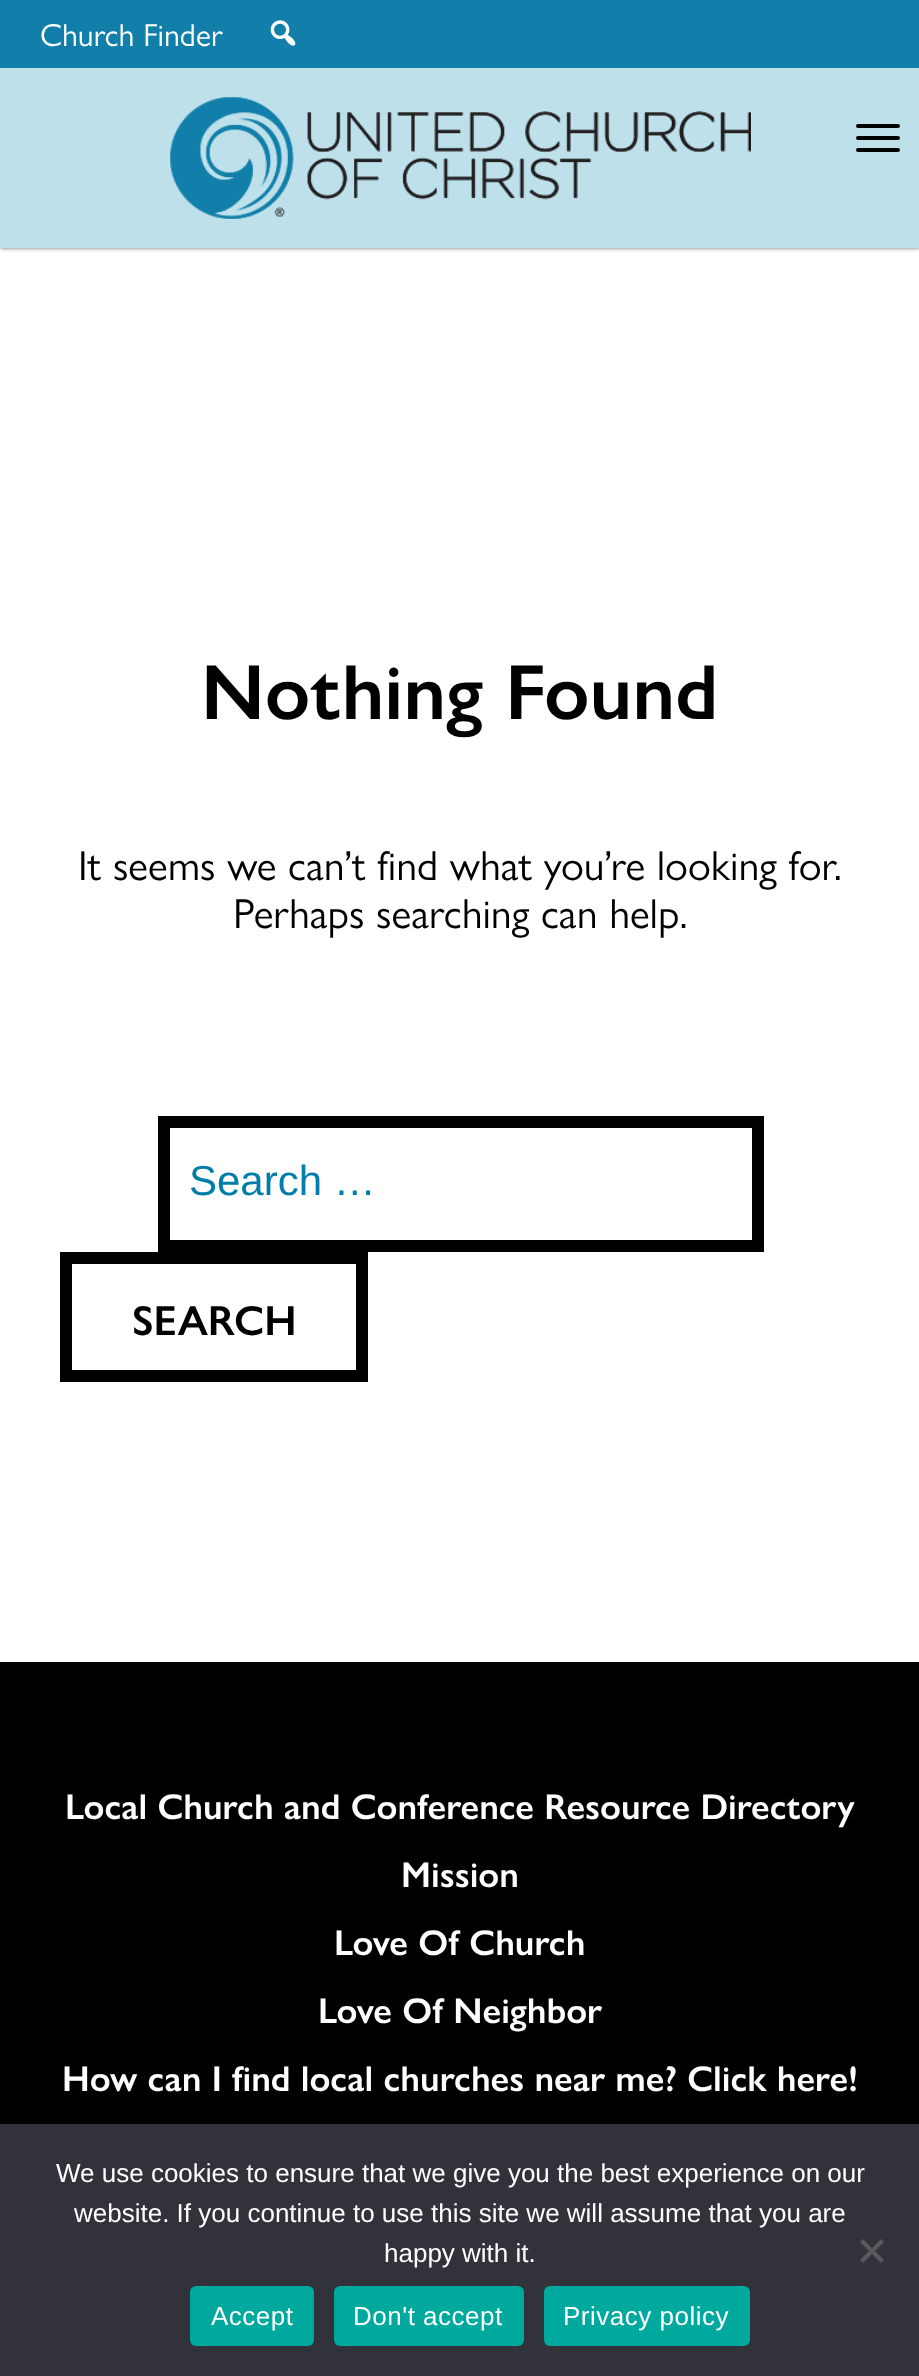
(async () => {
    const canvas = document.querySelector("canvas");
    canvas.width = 919;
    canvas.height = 2376;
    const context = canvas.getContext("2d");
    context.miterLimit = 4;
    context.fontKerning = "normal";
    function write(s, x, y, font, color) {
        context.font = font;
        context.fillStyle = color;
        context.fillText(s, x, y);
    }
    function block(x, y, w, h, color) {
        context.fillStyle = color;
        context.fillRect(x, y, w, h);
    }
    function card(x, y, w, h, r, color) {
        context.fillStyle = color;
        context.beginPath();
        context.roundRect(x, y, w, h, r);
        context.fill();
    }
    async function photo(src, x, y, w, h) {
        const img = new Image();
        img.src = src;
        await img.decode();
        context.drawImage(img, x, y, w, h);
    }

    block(0, 0, 919, 2376, "rgb(255, 255, 255)");
    context.fillStyle = "rgba(0, 0, 0, 0.6)";
    context.filter = "blur(2px)";
    context.beginPath();
    context.rect(0, 0, 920, 248);
    context.fill();
    context.filter = "none";
    block(0, 68, 919, 180, "rgb(190, 224, 235)");
    block(0, 0, 919, 68, "rgb(17, 127, 169)");
    write("Church Finder", 40, 46, "32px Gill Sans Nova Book", "rgb(255, 255, 255)");
    await photo("media/1.png", 270, 20, 26, 26);
    await photo("media/2.png", 170, 97, 581, 122);
    card(856, 124, 44, 4, 2, "rgb(0, 0, 0)");
    card(856, 136, 44, 4, 2, "rgb(0, 0, 0)");
    card(856, 148, 44, 4, 2, "rgb(0, 0, 0)");
    write("Nothing Found", 201, 719, "600 78.5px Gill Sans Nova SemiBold", "rgb(0, 0, 0)");
    write("It seems we can’t find what you’re looking for.", 78, 880, "42px Gill Sans Nova Book", "rgb(0, 0, 0)");
    write("Perhaps searching can help.", 233, 928, "42px Gill Sans Nova Book", "rgb(0, 0, 0)");
    context.strokeStyle = "rgb(0, 0, 0)";
    context.lineWidth = 12;
    context.strokeRect(164, 1122, 594, 124);
    write("Search …", 189, 1195, "42px Liberation Sans", "rgb(0, 126, 169)");
    context.strokeRect(66, 1258, 296, 118);
    write("SEARCH", 132, 1335, "600 42px Gill Sans Nova SemiBold", "rgb(0, 0, 0)");
    block(0, 1662, 919, 462, "rgb(0, 0, 0)");
    write("Local Church and Conference Resource Directory", 65, 1819, "600 36px Gill Sans Nova SemiBold", "rgb(255, 255, 255)");
    write("Mission", 401, 1887, "600 36px Gill Sans Nova SemiBold", "rgb(255, 255, 255)");
    write("Love Of Church", 334, 1955, "600 36px Gill Sans Nova SemiBold", "rgb(255, 255, 255)");
    write("Love Of Neighbor", 318, 2023, "600 36px Gill Sans Nova SemiBold", "rgb(255, 255, 255)");
    write("How can I find local churches near me? Click here!", 62, 2091, "600 36px Gill Sans Nova SemiBold", "rgb(255, 255, 255)");
    block(0, 2124, 919, 252, "rgb(50, 50, 58)");
    write("We use cookies to ensure that we give you the best experience on our", 56, 2182, "26px Liberation Sans", "rgb(255, 255, 255)");
    write("website. If you continue to use this site we will assume that you are", 74, 2222, "26px Liberation Sans", "rgb(255, 255, 255)");
    write("happy with it.", 384, 2262, "26px Liberation Sans", "rgb(255, 255, 255)");
    context.fillStyle = "rgb(89, 89, 93)";
    context.beginPath();
    context.moveTo(881, 2239);
    context.lineTo(884, 2242);
    context.lineTo(863, 2263);
    context.lineTo(860, 2260);
    context.closePath();
    context.fill();
    context.beginPath();
    context.moveTo(860, 2242);
    context.lineTo(863, 2239);
    context.lineTo(884, 2260);
    context.lineTo(881, 2263);
    context.closePath();
    context.fill();
    card(190, 2286, 124, 60, 6, "rgb(0, 169, 157)");
    context.letterSpacing = "0.5px";
    write("Accept", 211, 2325, "26px Liberation Sans", "rgb(255, 255, 255)");
    card(334, 2286, 190, 60, 6, "rgb(0, 169, 157)");
    write("Don't accept", 353, 2325, "26px Liberation Sans", "rgb(255, 255, 255)");
    card(544, 2286, 206, 60, 6, "rgb(0, 169, 157)");
    write("Privacy policy", 563, 2325, "26px Liberation Sans", "rgb(255, 255, 255)");
})();
